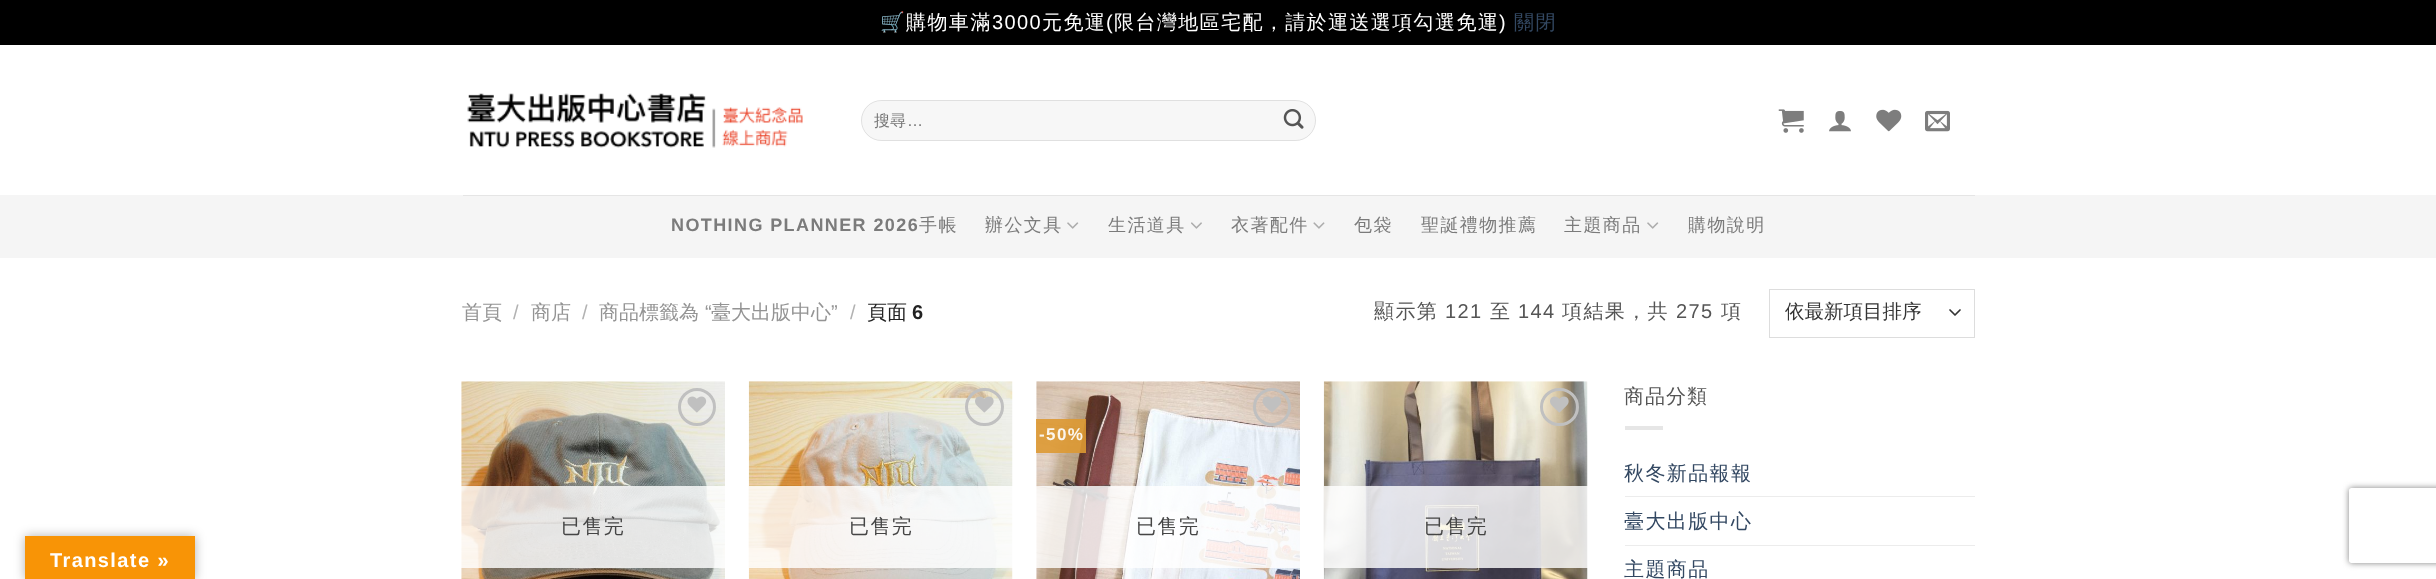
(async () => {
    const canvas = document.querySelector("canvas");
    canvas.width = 2436;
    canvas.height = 579;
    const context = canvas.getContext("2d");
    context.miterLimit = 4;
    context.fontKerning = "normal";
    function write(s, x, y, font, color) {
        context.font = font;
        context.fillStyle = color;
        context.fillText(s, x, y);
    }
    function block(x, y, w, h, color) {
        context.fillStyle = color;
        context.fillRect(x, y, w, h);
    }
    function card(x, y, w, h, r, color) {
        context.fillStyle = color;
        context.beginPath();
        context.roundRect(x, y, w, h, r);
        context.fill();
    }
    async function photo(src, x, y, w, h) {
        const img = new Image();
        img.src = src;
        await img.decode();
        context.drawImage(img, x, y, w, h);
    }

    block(0, 0, 2436, 579, "rgb(0, 0, 0)");
    context.letterSpacing = "1.4px";
    write("🛒", 880, 29, "20px Noto Color Emoji", "rgb(255, 255, 255)");
    write("購物車滿", 906, 29, "500 20px WenQuanYi Zen Hei", "rgb(255, 255, 255)");
    write("3000", 992, 29, "20px Liberation Sans", "rgb(255, 255, 255)");
    write("元免運", 1042, 29, "500 20px WenQuanYi Zen Hei", "rgb(255, 255, 255)");
    write("(", 1106, 29, "20px Liberation Sans", "rgb(255, 255, 255)");
    write("限台灣地區宅配，請於運送選項勾選免運", 1114, 29, "500 20px WenQuanYi Zen Hei", "rgb(255, 255, 255)");
    write(")", 1499, 29, "20px Liberation Sans", "rgb(255, 255, 255)");
    write("關閉", 1514, 29, "500 20px WenQuanYi Zen Hei", "rgb(51, 72, 98)");
    block(0, 45, 2436, 534, "rgb(255, 255, 255)");
    context.fillStyle = "rgba(0, 0, 0, 0.3)";
    context.filter = "blur(5.5px)";
    context.beginPath();
    context.rect(25, 536, 170, 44);
    context.fill();
    context.filter = "none";
    block(25, 536, 170, 43, "rgb(248, 148, 6)");
    write("Translate »", 50, 567, "bold 20px Liberation Sans", "rgb(255, 255, 255)");
    await photo("media/1.png", 467, 93, 336, 55);
    card(861, 100, 455, 41, 20.5, "rgb(247, 247, 247)");
    context.beginPath();
    context.roundRect(861.5, 100.5, 454, 40, 20);
    context.strokeStyle = "rgba(0, 0, 0, 0.09)";
    context.stroke();
    context.letterSpacing = "0px";
    write("搜尋", 874, 126, "500 16px WenQuanYi Zen Hei", "rgb(117, 117, 117)");
    write("…", 907, 126, "16px Liberation Sans", "rgb(117, 117, 117)");
    await photo("media/2.png", 1283, 109, 21, 20);
    await photo("media/3.png", 1778, 109, 26, 24);
    await photo("media/4.png", 1829, 111, 22, 21);
    await photo("media/5.png", 1876, 109, 26, 23);
    await photo("media/6.png", 1925, 110, 25, 22);
    block(0, 195, 2436, 63, "rgb(245, 245, 245)");
    block(463, 195, 1512, 1, "rgb(229, 229, 229)");
    context.letterSpacing = "1.4px";
    write("NOTHING PLANNER 2026", 671, 231, "bold 18px Liberation Sans", "rgb(123, 123, 123)");
    write("手帳", 919, 231, "500 18px WenQuanYi Zen Hei", "rgb(123, 123, 123)");
    write("辦公文具", 985, 231, "500 18px WenQuanYi Zen Hei", "rgb(123, 123, 123)");
    await photo("media/7.png", 1067, 222, 12, 7);
    write("生活道具", 1108, 231, "500 18px WenQuanYi Zen Hei", "rgb(123, 123, 123)");
    await photo("media/8.png", 1191, 222, 11, 7);
    write("衣著配件", 1231, 231, "500 18px WenQuanYi Zen Hei", "rgb(123, 123, 123)");
    await photo("media/9.png", 1313, 222, 12, 7);
    write("包袋", 1354, 231, "500 18px WenQuanYi Zen Hei", "rgb(123, 123, 123)");
    write("聖誕禮物推薦", 1421, 231, "500 18px WenQuanYi Zen Hei", "rgb(123, 123, 123)");
    write("主題商品", 1564, 231, "500 18px WenQuanYi Zen Hei", "rgb(123, 123, 123)");
    await photo("media/7.png", 1647, 222, 12, 7);
    write("購物說明", 1688, 231, "500 18px WenQuanYi Zen Hei", "rgb(123, 123, 123)");
    context.letterSpacing = "0px";
    write("首頁", 462, 319, "500 20px WenQuanYi Zen Hei", "rgb(148, 148, 148)");
    write("/", 513, 319, "20px Liberation Sans", "rgb(178, 178, 178)");
    write("商店", 531, 319, "500 20px WenQuanYi Zen Hei", "rgb(148, 148, 148)");
    write("/", 582, 319, "20px Liberation Sans", "rgb(178, 178, 178)");
    write("商品標籤為", 599, 319, "500 20px WenQuanYi Zen Hei", "rgb(148, 148, 148)");
    write("“", 705, 319, "20px Liberation Sans", "rgb(148, 148, 148)");
    write("臺大出版中心", 711, 319, "500 20px WenQuanYi Zen Hei", "rgb(148, 148, 148)");
    write("”", 831, 319, "20px Liberation Sans", "rgb(148, 148, 148)");
    write("/", 850, 319, "20px Liberation Sans", "rgb(178, 178, 178)");
    write("頁面", 867, 319, "500 20px WenQuanYi Zen Hei", "rgb(34, 34, 34)");
    write("6", 912, 319, "bold 20px Liberation Sans", "rgb(34, 34, 34)");
    context.letterSpacing = "1.4px";
    write("顯示第", 1374, 318, "500 20px WenQuanYi Zen Hei", "rgb(85, 85, 85)");
    write("121", 1445, 318, "20px Liberation Sans", "rgb(85, 85, 85)");
    write("至", 1490, 318, "500 20px WenQuanYi Zen Hei", "rgb(85, 85, 85)");
    write("144", 1518, 318, "20px Liberation Sans", "rgb(85, 85, 85)");
    write("項結果，共", 1562, 318, "500 20px WenQuanYi Zen Hei", "rgb(85, 85, 85)");
    write("275", 1676, 318, "20px Liberation Sans", "rgb(85, 85, 85)");
    write("項", 1721, 318, "500 20px WenQuanYi Zen Hei", "rgb(85, 85, 85)");
    context.beginPath();
    context.moveTo(1950, 310);
    context.lineTo(1955, 315);
    context.lineTo(1960, 310);
    context.strokeStyle = "rgb(51, 51, 51)";
    context.lineWidth = 1.7;
    context.lineCap = "round";
    context.lineJoin = "round";
    context.stroke();
    context.strokeStyle = "rgb(221, 221, 221)";
    context.lineWidth = 1;
    context.lineJoin = "miter";
    context.strokeRect(1769.5, 289.5, 205, 48);
    context.letterSpacing = "0px";
    write("依最新項目排序", 1785, 318, "500 19.5px WenQuanYi Zen Hei", "rgb(51, 51, 51)");
    await photo("media/10.png", 461, 381, 264, 198);
    context.beginPath();
    context.arc(697, 407, 17.5, 0, Math.PI * 2);
    context.strokeStyle = "rgb(192, 192, 192)";
    context.lineWidth = 3;
    context.stroke();
    await photo("media/11.png", 687, 396, 20, 17);
    block(461, 486, 264, 82, "rgba(255, 255, 255, 0.81)");
    context.letterSpacing = "1.4px";
    write("已售完", 561, 533, "500 20px WenQuanYi Zen Hei", "rgb(69, 69, 69)");
    await photo("media/12.png", 748, 381, 265, 198);
    context.beginPath();
    context.roundRect(966.5, 389.5, 36, 35, 17.5);
    context.stroke();
    await photo("media/13.png", 975, 396, 19, 17);
    block(749, 486, 264, 82, "rgba(255, 255, 255, 0.81)");
    write("已售完", 849, 533, "500 20px WenQuanYi Zen Hei", "rgb(69, 69, 69)");
    await photo("media/14.png", 1036, 381, 264, 198);
    block(1036, 419, 50, 34, "rgba(221, 153, 51, 0.9)");
    write("-50%", 1039, 440, "bold 17px Liberation Sans", "rgb(251, 245, 236)");
    context.beginPath();
    context.arc(1272, 407, 17.5, 0, Math.PI * 2);
    context.stroke();
    await photo("media/15.png", 1262, 396, 19, 17);
    block(1036, 486, 264, 82, "rgba(255, 255, 255, 0.81)");
    write("已售完", 1136, 533, "500 20px WenQuanYi Zen Hei", "rgb(69, 69, 69)");
    await photo("media/16.png", 1323, 381, 265, 198);
    context.beginPath();
    context.roundRect(1541.5, 389.5, 36, 35, 17.5);
    context.stroke();
    await photo("media/17.png", 1550, 396, 19, 17);
    block(1324, 486, 264, 82, "rgba(255, 255, 255, 0.81)");
    write("已售完", 1424, 533, "500 20px WenQuanYi Zen Hei", "rgb(69, 69, 69)");
    context.letterSpacing = "1px";
    write("商品分類", 1624, 403, "500 20px WenQuanYi Zen Hei", "rgb(85, 85, 85)");
    block(1625, 426, 38, 4, "rgb(230, 230, 230)");
    context.letterSpacing = "1.4px";
    write("秋冬新品報報", 1624, 480, "500 20px WenQuanYi Zen Hei", "rgb(51, 72, 98)");
    block(1625, 496, 350, 1, "rgb(236, 236, 236)");
    write("臺大出版中心", 1624, 528, "500 20px WenQuanYi Zen Hei", "rgb(51, 72, 98)");
    block(1625, 545, 350, 1, "rgb(236, 236, 236)");
    write("主題商品", 1624, 576, "500 20px WenQuanYi Zen Hei", "rgb(51, 72, 98)");
    context.save();
    context.beginPath();
    context.moveTo(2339, 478);
    context.lineTo(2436, 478);
    context.lineTo(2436, 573);
    context.lineTo(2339, 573);
    context.closePath();
    context.moveTo(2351.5, 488);
    context.lineTo(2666.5, 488);
    context.bezierCurveTo(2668, 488, 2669, 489, 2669, 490.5);
    context.lineTo(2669, 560.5);
    context.bezierCurveTo(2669, 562, 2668, 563, 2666.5, 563);
    context.lineTo(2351.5, 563);
    context.bezierCurveTo(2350, 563, 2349, 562, 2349, 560.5);
    context.lineTo(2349, 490.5);
    context.bezierCurveTo(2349, 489, 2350, 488, 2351.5, 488);
    context.closePath();
    context.clip("evenodd");
    context.fillStyle = "rgb(128, 128, 128)";
    context.filter = "blur(3px)";
    context.beginPath();
    context.roundRect(2349, 488, 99, 75, 2.5);
    context.fill();
    context.filter = "none";
    context.restore();
})();
